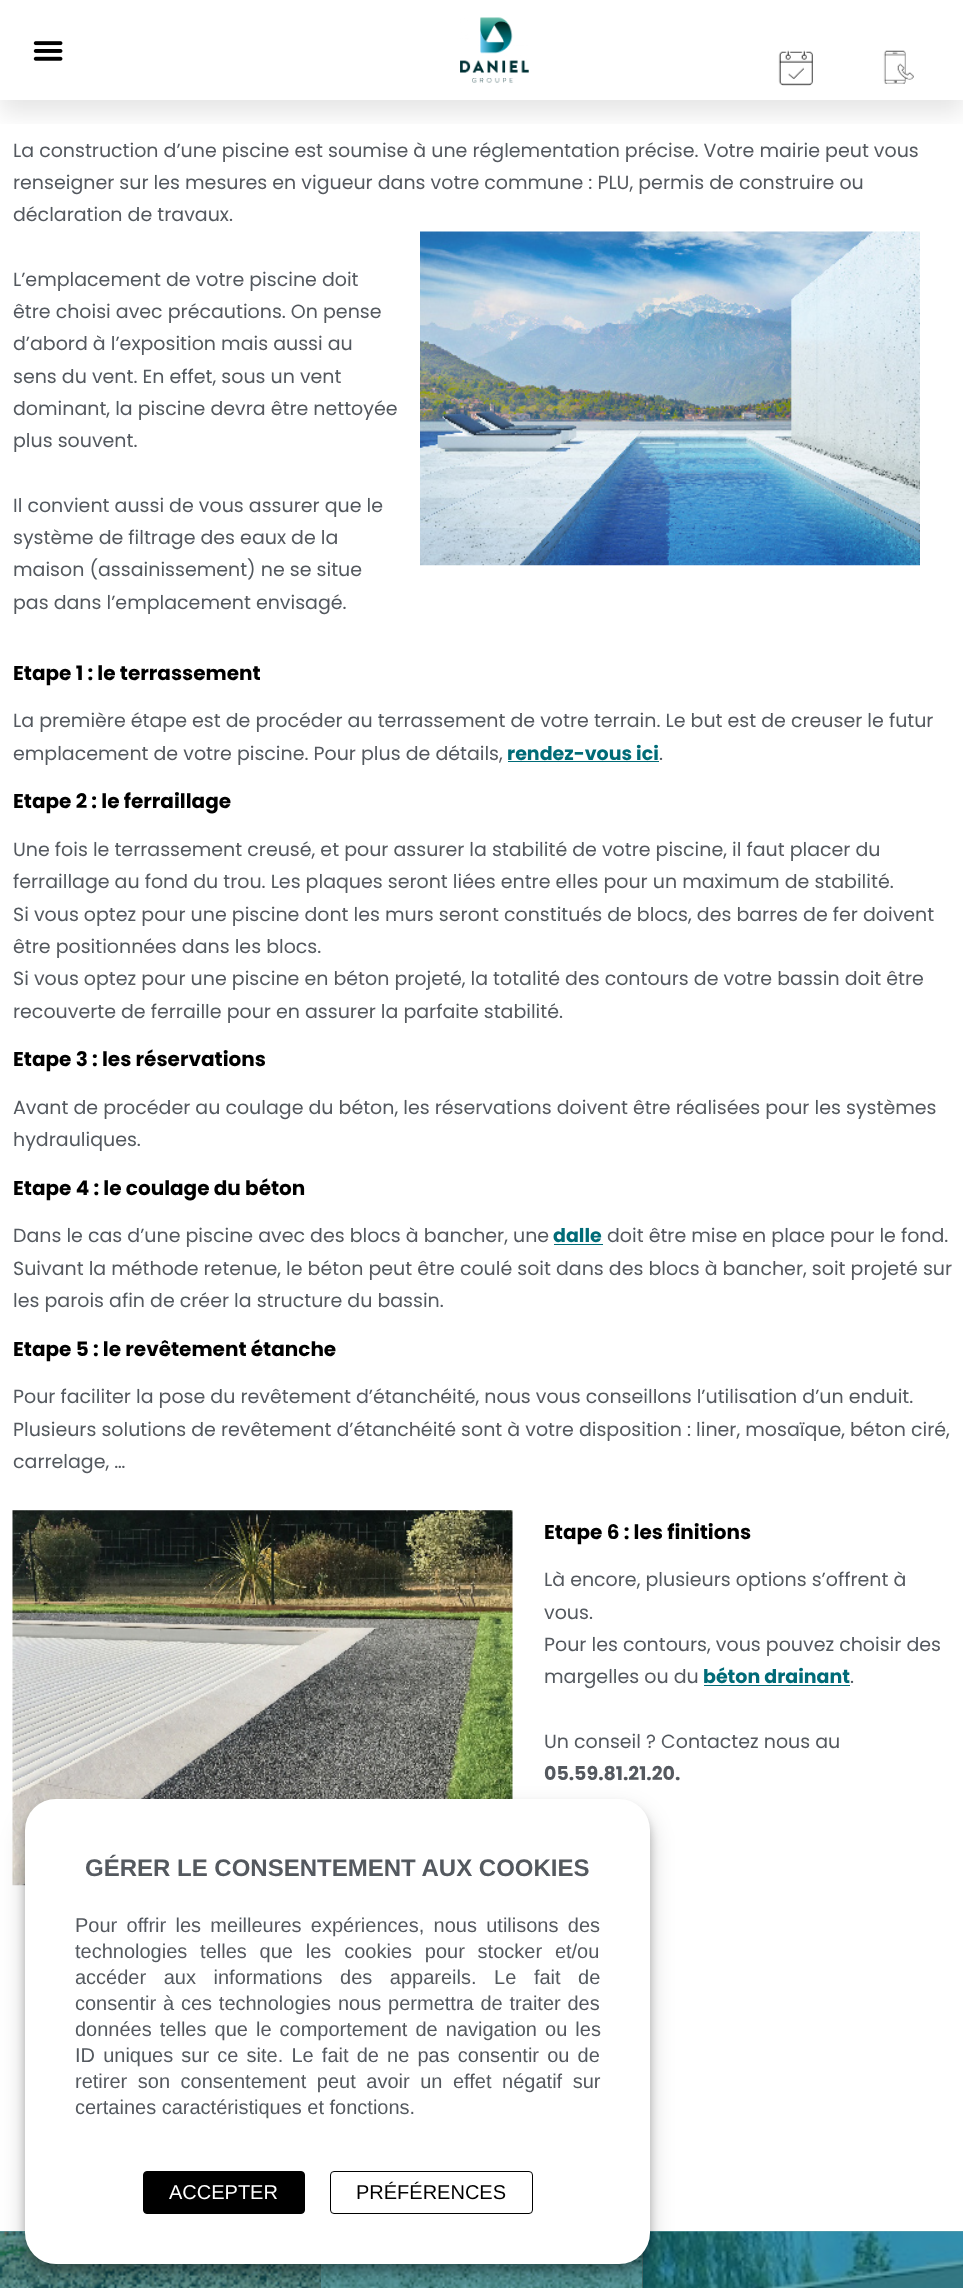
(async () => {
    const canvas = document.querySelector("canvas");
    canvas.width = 963;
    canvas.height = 2288;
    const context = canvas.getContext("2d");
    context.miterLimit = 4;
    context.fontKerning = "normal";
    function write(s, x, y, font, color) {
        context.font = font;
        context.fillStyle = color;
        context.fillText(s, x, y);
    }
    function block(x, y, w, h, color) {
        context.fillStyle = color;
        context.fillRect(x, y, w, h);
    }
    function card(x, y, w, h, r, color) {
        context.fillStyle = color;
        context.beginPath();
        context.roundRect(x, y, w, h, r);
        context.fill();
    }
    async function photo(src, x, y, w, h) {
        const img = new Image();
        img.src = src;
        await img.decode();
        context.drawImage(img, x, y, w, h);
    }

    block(0, 0, 963, 2288, "rgb(255, 255, 255)");
    context.save();
    context.beginPath();
    context.rect(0, 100, 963, 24);
    context.clip();
    context.fillStyle = "rgba(0, 0, 0, 0.1)";
    context.filter = "blur(12.5px)";
    context.beginPath();
    context.rect(0, 13, 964, 100);
    context.fill();
    context.filter = "none";
    context.restore();
    await photo("media/1.png", 33, 41, 30, 20);
    await photo("media/2.png", 460, 17, 69, 66);
    await photo("media/3.png", 778, 50, 35, 36);
    await photo("media/4.png", 883, 50, 31, 34);
    write("La construction d’une piscine est soumise à une réglementation précise. Votre mairie peut vous", 13, 157, "19px Poppins", "rgb(84, 89, 95)");
    write("renseigner sur les mesures en vigueur dans votre commune : PLU, permis de construire ou", 13, 189, "19px Poppins", "rgb(84, 89, 95)");
    write("déclaration de travaux.", 13, 221, "19px Poppins", "rgb(84, 89, 95)");
    write("L’emplacement de votre piscine doit", 13, 286, "19px Poppins", "rgb(84, 89, 95)");
    write("être choisi avec précautions. On pense", 13, 318, "19px Poppins", "rgb(84, 89, 95)");
    write("d’abord à l’exposition mais aussi au", 13, 350, "19px Poppins", "rgb(84, 89, 95)");
    write("sens du vent. En effet, sous un vent", 13, 383, "19px Poppins", "rgb(84, 89, 95)");
    write("dominant, la piscine devra être nettoyée", 13, 415, "19px Poppins", "rgb(84, 89, 95)");
    write("plus souvent.", 13, 447, "19px Poppins", "rgb(84, 89, 95)");
    await photo("media/5.png", 420, 231, 500, 335);
    write("Il convient aussi de vous assurer que le", 13, 512, "19px Poppins", "rgb(84, 89, 95)");
    write("système de filtrage des eaux de la", 13, 544, "19px Poppins", "rgb(84, 89, 95)");
    write("maison (assainissement) ne se situe", 13, 576, "19px Poppins", "rgb(84, 89, 95)");
    write("pas dans l’emplacement envisagé.", 13, 609, "19px Poppins", "rgb(84, 89, 95)");
    write("Etape 1 : le terrassement", 13, 680, "bold 20px Poppins", "rgb(0, 0, 0)");
    write("La première étape est de procéder au terrassement de votre terrain. Le but est de creuser le futur", 13, 727, "19px Poppins", "rgb(84, 89, 95)");
    write("emplacement de votre piscine. Pour plus de détails,", 13, 760, "19px Poppins", "rgb(84, 89, 95)");
    write("rendez-vous ici", 507, 760, "bold 19px Poppins", "rgb(0, 107, 119)");
    block(508, 761, 151, 1, "rgb(0, 107, 119)");
    write(".", 659, 760, "19px Poppins", "rgb(84, 89, 95)");
    write("Etape 2 : le ferraillage", 13, 808, "bold 20px Poppins", "rgb(0, 0, 0)");
    write("Une fois le terrassement creusé, et pour assurer la stabilité de votre piscine, il faut placer du", 13, 856, "19px Poppins", "rgb(84, 89, 95)");
    write("ferraillage au fond du trou. Les plaques seront liées entre elles pour un maximum de stabilité.", 13, 888, "19px Poppins", "rgb(84, 89, 95)");
    write("Si vous optez pour une piscine dont les murs seront constitués de blocs, des barres de fer doivent", 13, 921, "19px Poppins", "rgb(84, 89, 95)");
    write("être positionnées dans les blocs.", 13, 953, "19px Poppins", "rgb(84, 89, 95)");
    write("Si vous optez pour une piscine en béton projeté, la totalité des contours de votre bassin doit être", 13, 985, "19px Poppins", "rgb(84, 89, 95)");
    write("recouverte de ferraille pour en assurer la parfaite stabilité.", 13, 1018, "19px Poppins", "rgb(84, 89, 95)");
    write("Etape 3 : les réservations", 13, 1066, "bold 20px Poppins", "rgb(0, 0, 0)");
    write("Avant de procéder au coulage du béton, les réservations doivent être réalisées pour les systèmes", 13, 1114, "19px Poppins", "rgb(84, 89, 95)");
    write("hydrauliques.", 13, 1146, "19px Poppins", "rgb(84, 89, 95)");
    write("Etape 4 : le coulage du béton", 13, 1195, "bold 20px Poppins", "rgb(0, 0, 0)");
    write("Dans le cas d’une piscine avec des blocs à bancher, une", 13, 1242, "19px Poppins", "rgb(84, 89, 95)");
    write("dalle", 553, 1242, "bold 19px Poppins", "rgb(0, 107, 119)");
    block(554, 1244, 49, 1, "rgb(0, 107, 119)");
    write("doit être mise en place pour le fond.", 607, 1242, "19px Poppins", "rgb(84, 89, 95)");
    write("Suivant la méthode retenue, le béton peut être coulé soit dans des blocs à bancher, soit projeté sur", 13, 1275, "19px Poppins", "rgb(84, 89, 95)");
    write("les parois afin de créer la structure du bassin.", 13, 1307, "19px Poppins", "rgb(84, 89, 95)");
    write("Etape 5 : le revêtement étanche", 13, 1356, "bold 20px Poppins", "rgb(0, 0, 0)");
    write("Pour faciliter la pose du revêtement d’étanchéité, nous vous conseillons l’utilisation d’un enduit.", 13, 1403, "19px Poppins", "rgb(84, 89, 95)");
    write("Plusieurs solutions de revêtement d’étanchéité sont à votre disposition : liner, mosaïque, béton ciré,", 13, 1436, "19px Poppins", "rgb(84, 89, 95)");
    write("carrelage, …", 13, 1468, "19px Poppins", "rgb(84, 89, 95)");
    await photo("media/6.png", 12, 1510, 501, 376);
    write("Etape 6 : les finitions", 544, 1539, "bold 20px Poppins", "rgb(0, 0, 0)");
    write("Là encore, plusieurs options s’offrent à", 544, 1586, "19px Poppins", "rgb(84, 89, 95)");
    write("vous.", 544, 1619, "19px Poppins", "rgb(84, 89, 95)");
    write("Pour les contours, vous pouvez choisir des", 544, 1651, "19px Poppins", "rgb(84, 89, 95)");
    write("margelles ou du", 544, 1683, "19px Poppins", "rgb(84, 89, 95)");
    write("béton drainant", 703, 1683, "bold 19px Poppins", "rgb(0, 107, 119)");
    block(704, 1685, 146, 1, "rgb(0, 107, 119)");
    write(".", 850, 1683, "19px Poppins", "rgb(84, 89, 95)");
    write("Un conseil ? Contactez nous au", 544, 1748, "19px Poppins", "rgb(84, 89, 95)");
    write("05.59.81.21.20.", 544, 1780, "bold 19px Poppins", "rgb(84, 89, 95)");
    block(0, 2231, 25, 1, "rgb(102, 166, 173)");
    await photo("media/7.png", 0, 2231, 322, 57);
    await photo("media/8.png", 321, 2252, 322, 36);
    block(321, 2252, 322, 36, "rgba(0, 107, 119, 0.6)");
    block(650, 2231, 313, 1, "rgb(102, 166, 173)");
    await photo("media/9.png", 642, 2231, 321, 57);
    context.fillStyle = "rgba(0, 0, 0, 0.23)";
    context.filter = "blur(4px)";
    context.beginPath();
    context.roundRect(25, 1806, 625, 465, 31);
    context.fill();
    context.filter = "none";
    context.fillStyle = "rgba(0, 0, 0, 0.19)";
    context.filter = "blur(12.5px)";
    context.beginPath();
    context.roundRect(25, 1811, 625, 465, 31);
    context.fill();
    context.filter = "none";
    card(25, 1799, 625, 465, 31, "rgb(255, 255, 255)");
    write("GÉRER LE CONSENTEMENT AUX COOKIES", 85, 1876, "bold 24px Liberation Sans", "rgb(84, 89, 95)");
    context.wordSpacing = "3.75px";
    write("Pour offrir les meilleures expériences, nous utilisons des", 75, 1932, "20px Liberation Sans", "rgb(84, 89, 95)");
    context.wordSpacing = "7.25px";
    write("technologies telles que les cookies pour stocker et/ou", 75, 1958, "20px Liberation Sans", "rgb(84, 89, 95)");
    context.wordSpacing = "12px";
    write("accéder aux informations des appareils. Le fait de", 75, 1984, "20px Liberation Sans", "rgb(84, 89, 95)");
    context.wordSpacing = "1.25px";
    write("consentir à ces technologies nous permettra de traiter des", 75, 2010, "20px Liberation Sans", "rgb(84, 89, 95)");
    context.wordSpacing = "2.5px";
    write("données telles que le comportement de navigation ou les", 75, 2036, "20px Liberation Sans", "rgb(84, 89, 95)");
    context.wordSpacing = "2.6px";
    write("ID uniques sur ce site. Le fait de ne pas consentir ou de", 75, 2062, "20px Liberation Sans", "rgb(84, 89, 95)");
    context.wordSpacing = "5px";
    write("retirer son consentement peut avoir un effet négatif sur", 75, 2088, "20px Liberation Sans", "rgb(84, 89, 95)");
    context.wordSpacing = "0px";
    write("certaines caractéristiques et fonctions.", 75, 2114, "20px Liberation Sans", "rgb(84, 89, 95)");
    context.fillStyle = "rgb(0, 0, 0)";
    context.beginPath();
    context.roundRect(143.5, 2171.5, 161, 42, 3.5);
    context.fill();
    context.strokeStyle = "rgb(0, 0, 0)";
    context.stroke();
    write("ACCEPTER", 169, 2199, "20px Liberation Sans", "rgb(255, 255, 255)");
    context.beginPath();
    context.roundRect(330.5, 2171.5, 202, 42, 3.5);
    context.stroke();
    write("PRÉFÉRENCES", 356, 2199, "20px Liberation Sans", "rgb(0, 0, 0)");
})();
